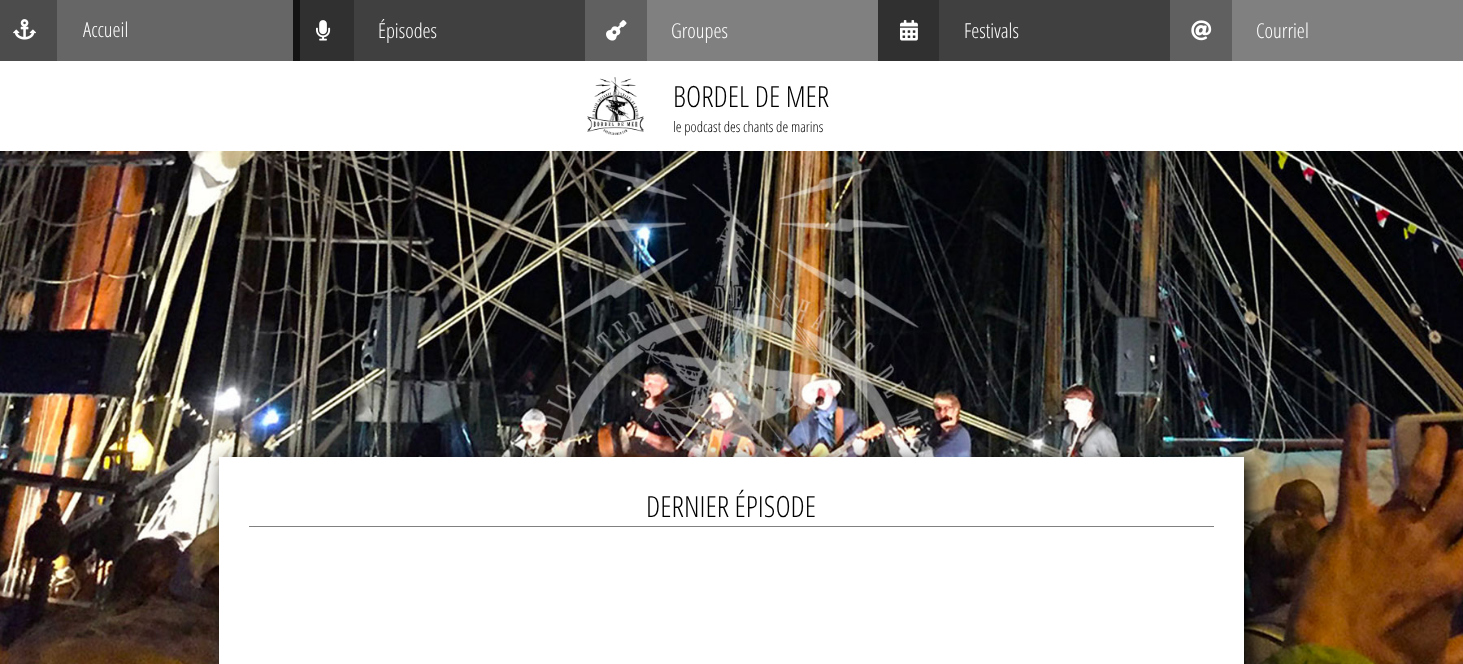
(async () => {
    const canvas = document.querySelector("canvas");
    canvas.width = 1463;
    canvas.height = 664;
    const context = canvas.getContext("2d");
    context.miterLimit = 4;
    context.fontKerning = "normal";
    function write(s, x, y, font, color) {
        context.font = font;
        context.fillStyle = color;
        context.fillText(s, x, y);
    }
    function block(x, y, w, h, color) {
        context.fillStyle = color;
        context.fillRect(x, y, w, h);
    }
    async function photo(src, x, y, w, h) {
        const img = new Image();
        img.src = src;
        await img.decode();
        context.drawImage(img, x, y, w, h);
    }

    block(0, 0, 1463, 664, "rgb(255, 255, 255)");
    block(57, 0, 236, 61, "rgb(102, 102, 102)");
    block(0, 0, 57, 61, "rgb(76, 76, 76)");
    await photo("media/1.png", 13, 19, 23, 21);
    write("Accueil", 83, 37, "300 20.5px Open Sans Condensed", "rgb(255, 255, 255)");
    block(354, 0, 231, 61, "rgb(64, 64, 64)");
    block(300, 0, 54, 61, "rgb(48, 48, 48)");
    block(293, 0, 7, 61, "rgb(19, 19, 19)");
    await photo("media/2.png", 316, 20, 15, 21);
    write("Épisodes", 378, 38, "300 20.5px Open Sans Condensed", "rgb(255, 255, 255)");
    block(647, 0, 231, 61, "rgb(128, 128, 128)");
    block(585, 0, 62, 61, "rgb(96, 96, 96)");
    await photo("media/3.png", 606, 20, 21, 21);
    write("Groupes", 671, 38, "300 20.5px Open Sans Condensed", "rgb(255, 255, 255)");
    block(939, 0, 231, 61, "rgb(64, 64, 64)");
    block(878, 0, 61, 61, "rgb(48, 48, 48)");
    await photo("media/4.png", 900, 20, 18, 21);
    write("Festivals", 964, 38, "300 20.5px Open Sans Condensed", "rgb(255, 255, 255)");
    block(1232, 0, 231, 61, "rgb(128, 128, 128)");
    block(1170, 0, 62, 61, "rgb(96, 96, 96)");
    await photo("media/5.png", 1191, 20, 21, 21);
    write("Courriel", 1256, 38, "300 20.5px Open Sans Condensed", "rgb(255, 255, 255)");
    await photo("media/6.png", 587, 77, 57, 58);
    write("BORDEL DE MER", 673, 107, "300 29.25px Open Sans Condensed", "rgb(0, 0, 0)");
    write("le podcast des chants de marins", 673, 132, "300 14.6px Open Sans Condensed", "rgb(0, 0, 0)");
    await photo("media/7.png", 0, 151, 1463, 513);
    context.filter = "blur(10px)";
    context.beginPath();
    context.rect(225, 463, 1025, 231);
    context.fill();
    context.filter = "none";
    block(219, 457, 1025, 207, "rgb(255, 255, 255)");
    block(249, 526, 965, 1, "rgb(128, 128, 128)");
    write("DERNIER ÉPISODE", 646, 517, "300 29.25px Open Sans Condensed", "rgb(0, 0, 0)");
})();
